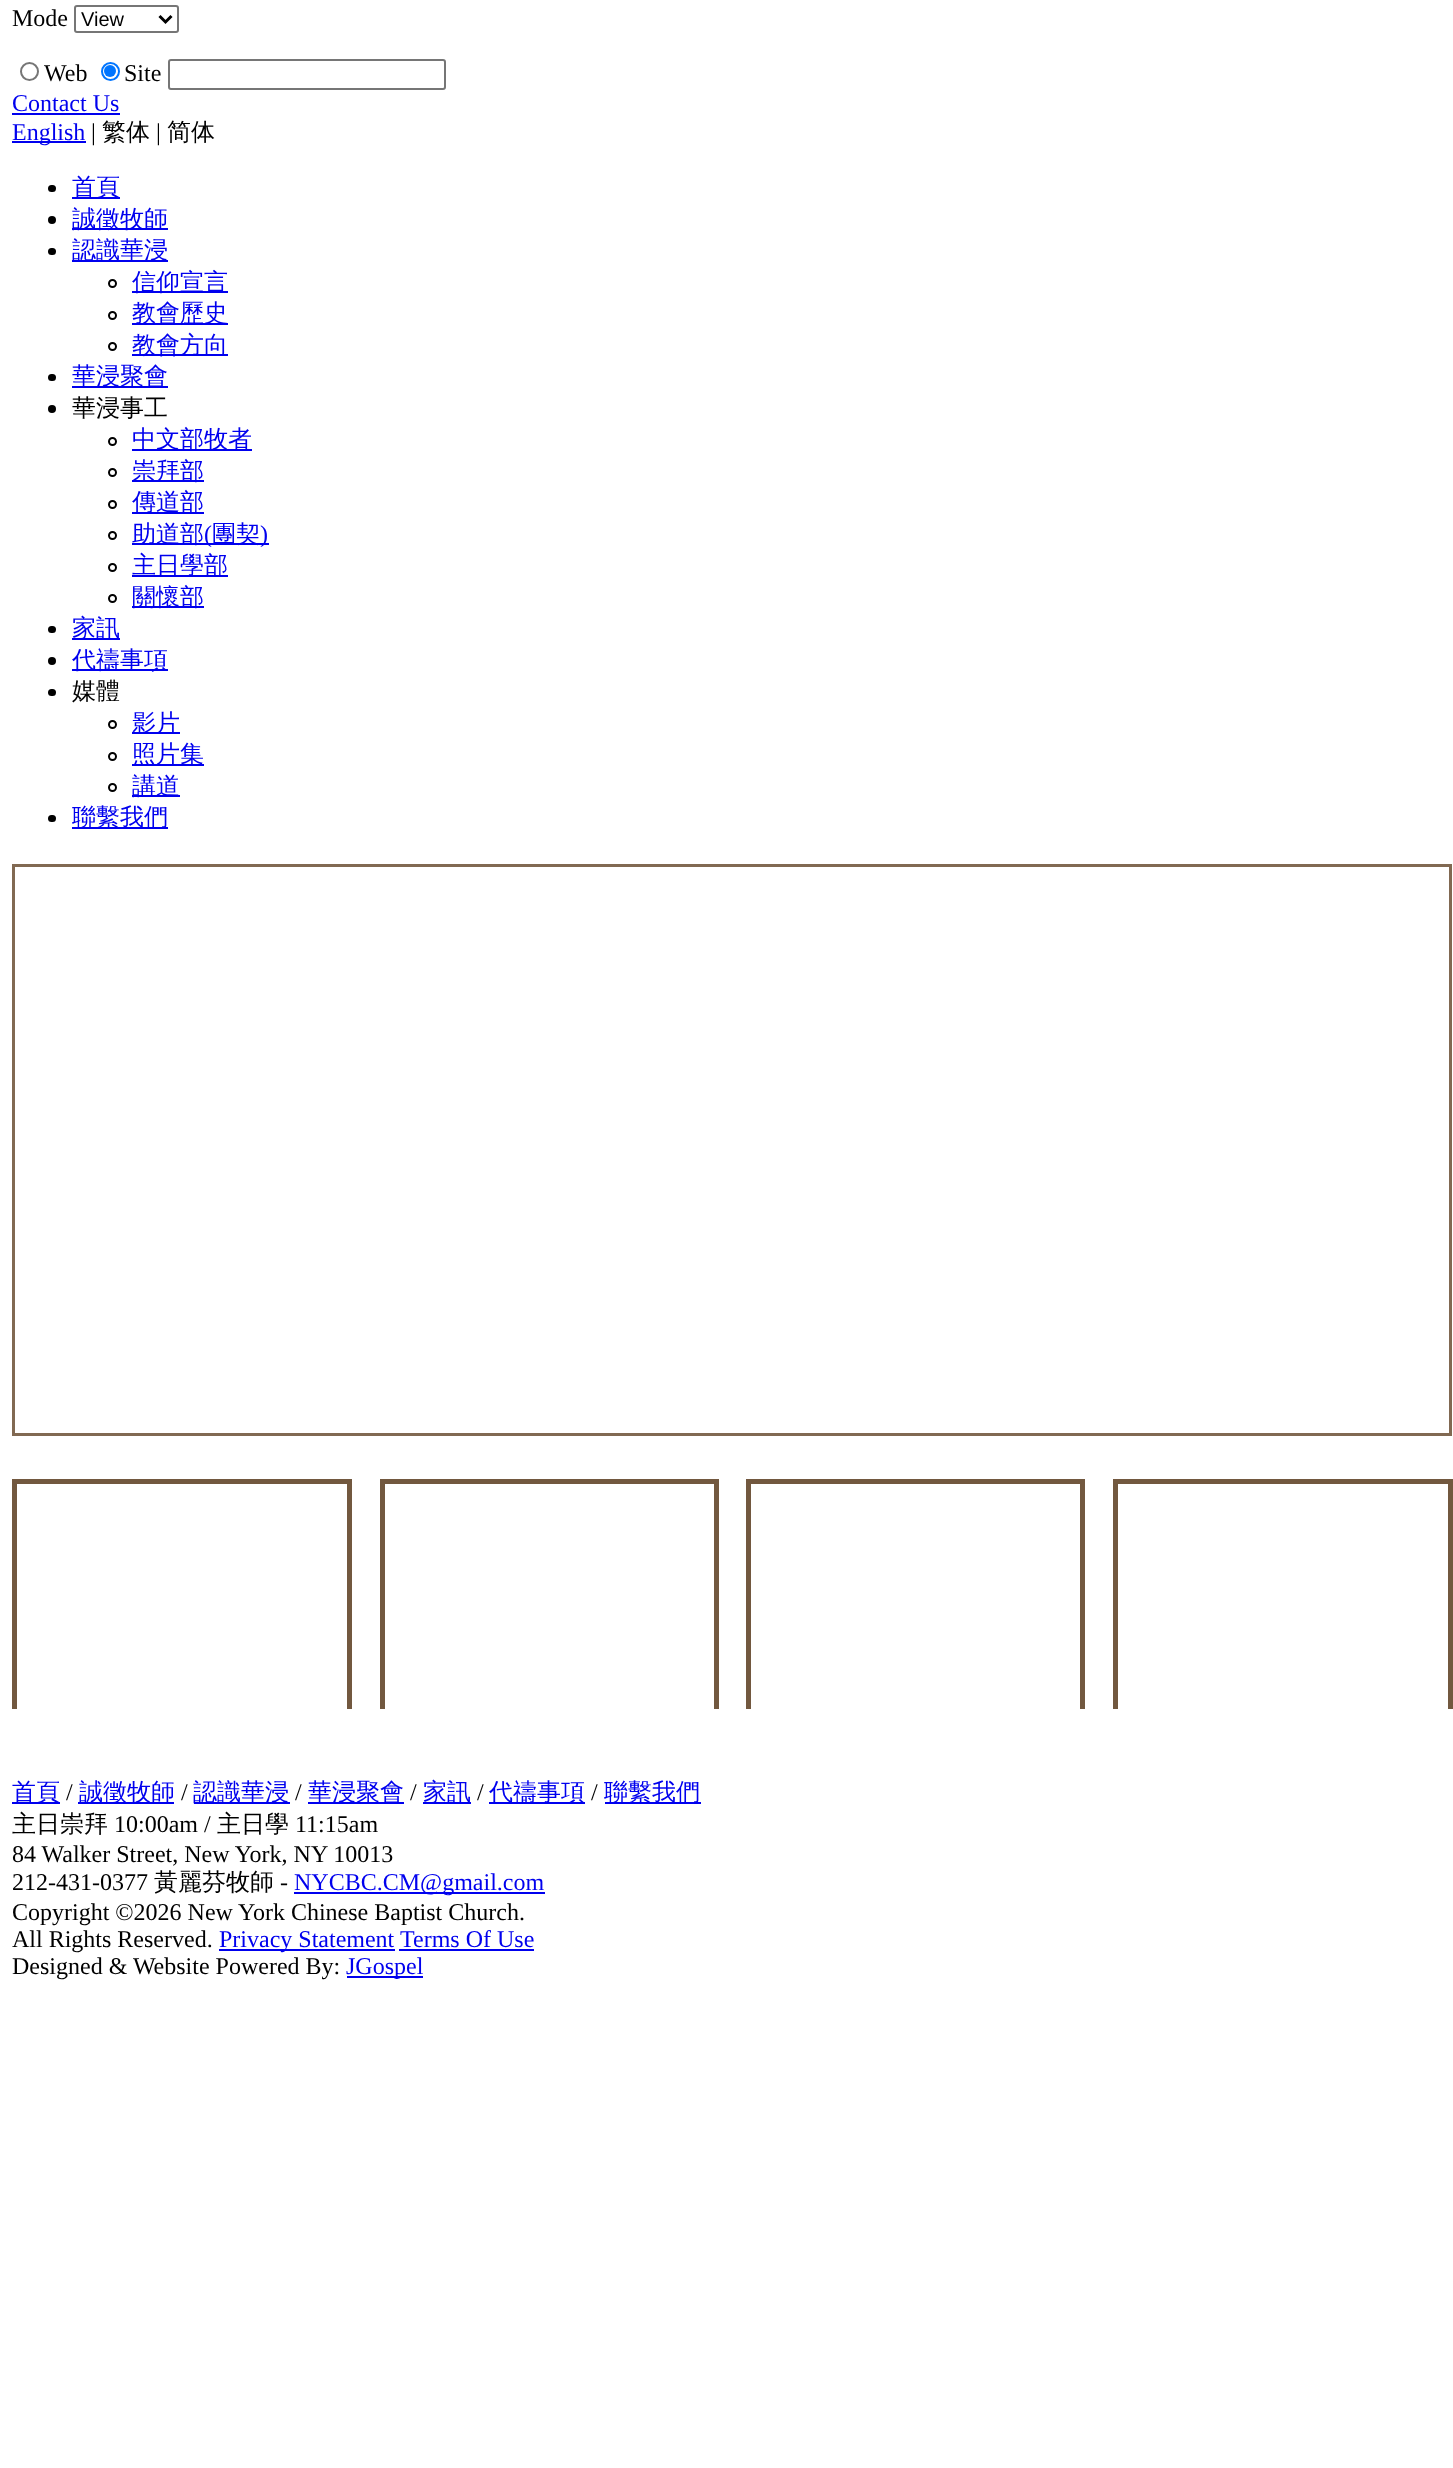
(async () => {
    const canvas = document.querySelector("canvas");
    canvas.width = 1453;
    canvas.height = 2468;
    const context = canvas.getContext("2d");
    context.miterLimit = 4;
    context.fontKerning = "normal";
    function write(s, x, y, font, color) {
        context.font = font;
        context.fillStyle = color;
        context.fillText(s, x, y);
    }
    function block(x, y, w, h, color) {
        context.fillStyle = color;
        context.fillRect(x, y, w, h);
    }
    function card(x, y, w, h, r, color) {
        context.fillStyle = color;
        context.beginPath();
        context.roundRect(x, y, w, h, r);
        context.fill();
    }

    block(0, 0, 1453, 2468, "rgb(255, 255, 255)");
    write("Mode", 12, 26, "24px Liberation Serif", "rgb(0, 0, 0)");
    context.beginPath();
    context.roundRect(75, 6, 103, 26, 2);
    context.strokeStyle = "rgb(118, 118, 118)";
    context.lineWidth = 2;
    context.stroke();
    context.beginPath();
    context.moveTo(159.5, 16);
    context.lineTo(165.5, 22);
    context.lineTo(171.5, 16);
    context.strokeStyle = "rgb(0, 0, 0)";
    context.lineWidth = 3;
    context.stroke();
    write("View", 81, 26, "20px Liberation Sans", "rgb(0, 0, 0)");
    context.beginPath();
    context.arc(29.5, 71.5, 8.5, 0, Math.PI * 2);
    context.strokeStyle = "rgb(118, 118, 118)";
    context.lineWidth = 2;
    context.stroke();
    write("Web", 44, 81, "24px Liberation Serif", "rgb(0, 0, 0)");
    context.beginPath();
    context.arc(110.5, 71.5, 8.5, 0, Math.PI * 2);
    context.strokeStyle = "rgb(0, 117, 255)";
    context.stroke();
    context.fillStyle = "rgb(0, 117, 255)";
    context.beginPath();
    context.arc(110, 71, 6, 0, Math.PI * 2);
    context.fill();
    write("Site", 124, 81, "24px Liberation Serif", "rgb(0, 0, 0)");
    context.beginPath();
    context.roundRect(169, 60, 276, 29, 2);
    context.strokeStyle = "rgb(118, 118, 118)";
    context.stroke();
    write("Contact Us", 12, 111, "24px Liberation Serif", "rgb(0, 0, 238)");
    block(12, 113, 108, 2, "rgb(0, 0, 238)");
    block(12, 141, 74, 2, "rgb(0, 0, 238)");
    write("English", 12, 140, "24px Liberation Serif", "rgb(0, 0, 238)");
    write("|", 91, 140, "24px Liberation Serif", "rgb(0, 0, 0)");
    write("繁体", 102, 140, "500 24px WenQuanYi Zen Hei", "rgb(0, 0, 0)");
    write("|", 156, 140, "24px Liberation Serif", "rgb(0, 0, 0)");
    write("简体", 167, 140, "500 24px WenQuanYi Zen Hei", "rgb(0, 0, 0)");
    card(48, 185, 8, 7, 3.5, "rgb(0, 0, 0)");
    block(72, 197, 48, 2, "rgb(0, 0, 238)");
    write("首頁", 72, 195, "500 24px WenQuanYi Zen Hei", "rgb(0, 0, 238)");
    context.fillStyle = "rgb(0, 0, 0)";
    context.beginPath();
    context.arc(52, 220, 4, 0, Math.PI * 2);
    context.fill();
    block(72, 228, 96, 2, "rgb(0, 0, 238)");
    write("誠徵牧師", 72, 227, "500 24px WenQuanYi Zen Hei", "rgb(0, 0, 238)");
    card(48, 248, 8, 7, 3.5, "rgb(0, 0, 0)");
    block(72, 260, 96, 2, "rgb(0, 0, 238)");
    write("認識華浸", 72, 258, "500 24px WenQuanYi Zen Hei", "rgb(0, 0, 238)");
    context.beginPath();
    context.arc(112.5, 283.5, 3.5, 0, Math.PI * 2);
    context.strokeStyle = "rgb(0, 0, 0)";
    context.stroke();
    block(132, 291, 96, 2, "rgb(0, 0, 238)");
    write("信仰宣言", 132, 290, "500 24px WenQuanYi Zen Hei", "rgb(0, 0, 238)");
    context.beginPath();
    context.arc(112.5, 315.5, 3.5, 0, Math.PI * 2);
    context.stroke();
    block(132, 323, 96, 2, "rgb(0, 0, 238)");
    write("教會歷史", 132, 321, "500 24px WenQuanYi Zen Hei", "rgb(0, 0, 238)");
    context.beginPath();
    context.arc(112.5, 346.5, 3.5, 0, Math.PI * 2);
    context.stroke();
    block(132, 354, 96, 2, "rgb(0, 0, 238)");
    write("教會方向", 132, 353, "500 24px WenQuanYi Zen Hei", "rgb(0, 0, 238)");
    card(48, 374, 8, 7, 3.5, "rgb(0, 0, 0)");
    block(72, 386, 96, 2, "rgb(0, 0, 238)");
    write("華浸聚會", 72, 384, "500 24px WenQuanYi Zen Hei", "rgb(0, 0, 238)");
    context.fillStyle = "rgb(0, 0, 0)";
    context.beginPath();
    context.arc(52, 409, 4, 0, Math.PI * 2);
    context.fill();
    write("華浸事工", 72, 416, "500 24px WenQuanYi Zen Hei", "rgb(0, 0, 0)");
    context.beginPath();
    context.arc(112.5, 441.5, 3.5, 0, Math.PI * 2);
    context.stroke();
    block(132, 449, 120, 2, "rgb(0, 0, 238)");
    write("中文部牧者", 132, 447, "500 24px WenQuanYi Zen Hei", "rgb(0, 0, 238)");
    context.beginPath();
    context.arc(112.5, 472.5, 3.5, 0, Math.PI * 2);
    context.stroke();
    block(132, 480, 72, 2, "rgb(0, 0, 238)");
    write("崇拜部", 132, 479, "500 24px WenQuanYi Zen Hei", "rgb(0, 0, 238)");
    context.beginPath();
    context.arc(112.5, 504.5, 3.5, 0, Math.PI * 2);
    context.stroke();
    block(132, 512, 72, 2, "rgb(0, 0, 238)");
    write("傳道部", 132, 510, "500 24px WenQuanYi Zen Hei", "rgb(0, 0, 238)");
    context.beginPath();
    context.arc(112.5, 535.5, 3.5, 0, Math.PI * 2);
    context.stroke();
    block(132, 543, 137, 2, "rgb(0, 0, 238)");
    write("助道部", 132, 542, "500 24px WenQuanYi Zen Hei", "rgb(0, 0, 238)");
    write("(", 204, 542, "24px Liberation Serif", "rgb(0, 0, 238)");
    write("團契", 212, 542, "500 24px WenQuanYi Zen Hei", "rgb(0, 0, 238)");
    write(")", 260, 542, "24px Liberation Serif", "rgb(0, 0, 238)");
    context.beginPath();
    context.arc(112.5, 567.5, 3.5, 0, Math.PI * 2);
    context.stroke();
    block(132, 575, 96, 2, "rgb(0, 0, 238)");
    write("主日學部", 132, 573, "500 24px WenQuanYi Zen Hei", "rgb(0, 0, 238)");
    context.beginPath();
    context.arc(112.5, 598.5, 3.5, 0, Math.PI * 2);
    context.stroke();
    block(132, 606, 72, 2, "rgb(0, 0, 238)");
    write("關懷部", 132, 605, "500 24px WenQuanYi Zen Hei", "rgb(0, 0, 238)");
    card(48, 626, 8, 7, 3.5, "rgb(0, 0, 0)");
    block(72, 638, 48, 2, "rgb(0, 0, 238)");
    write("家訊", 72, 636, "500 24px WenQuanYi Zen Hei", "rgb(0, 0, 238)");
    context.fillStyle = "rgb(0, 0, 0)";
    context.beginPath();
    context.arc(52, 661, 4, 0, Math.PI * 2);
    context.fill();
    block(72, 669, 96, 2, "rgb(0, 0, 238)");
    write("代禱事項", 72, 668, "500 24px WenQuanYi Zen Hei", "rgb(0, 0, 238)");
    card(48, 689, 8, 7, 3.5, "rgb(0, 0, 0)");
    write("媒體", 72, 699, "500 24px WenQuanYi Zen Hei", "rgb(0, 0, 0)");
    context.beginPath();
    context.arc(112.5, 724.5, 3.5, 0, Math.PI * 2);
    context.stroke();
    block(132, 732, 48, 2, "rgb(0, 0, 238)");
    write("影片", 132, 731, "500 24px WenQuanYi Zen Hei", "rgb(0, 0, 238)");
    context.beginPath();
    context.arc(112.5, 756.5, 3.5, 0, Math.PI * 2);
    context.stroke();
    block(132, 764, 72, 2, "rgb(0, 0, 238)");
    write("照片集", 132, 762, "500 24px WenQuanYi Zen Hei", "rgb(0, 0, 238)");
    context.beginPath();
    context.arc(112.5, 787.5, 3.5, 0, Math.PI * 2);
    context.stroke();
    block(132, 795, 48, 2, "rgb(0, 0, 238)");
    write("講道", 132, 794, "500 24px WenQuanYi Zen Hei", "rgb(0, 0, 238)");
    card(48, 815, 8, 7, 3.5, "rgb(0, 0, 0)");
    block(72, 827, 96, 2, "rgb(0, 0, 238)");
    write("聯繫我們", 72, 825, "500 24px WenQuanYi Zen Hei", "rgb(0, 0, 238)");
    context.strokeStyle = "rgb(129, 105, 82)";
    context.lineWidth = 3;
    context.strokeRect(13.5, 865.5, 1437, 569);
    block(12, 1479, 339, 5, "rgb(114, 88, 63)");
    block(347, 1479, 5, 230, "rgb(114, 88, 63)");
    block(12, 1479, 5, 230, "rgb(114, 88, 63)");
    block(380, 1479, 339, 5, "rgb(114, 88, 63)");
    block(714, 1479, 5, 230, "rgb(114, 88, 63)");
    block(380, 1479, 5, 230, "rgb(114, 88, 63)");
    block(746, 1479, 339, 5, "rgb(114, 88, 63)");
    block(1080, 1479, 5, 230, "rgb(114, 88, 63)");
    block(746, 1479, 5, 230, "rgb(114, 88, 63)");
    block(1113, 1479, 339, 5, "rgb(114, 88, 63)");
    block(1448, 1479, 5, 230, "rgb(114, 88, 63)");
    block(1113, 1479, 5, 230, "rgb(114, 88, 63)");
    block(12, 1802, 48, 2, "rgb(0, 0, 238)");
    write("首頁", 12, 1800, "500 24px WenQuanYi Zen Hei", "rgb(0, 0, 238)");
    write("/", 66, 1800, "24px Liberation Serif", "rgb(0, 0, 0)");
    block(78, 1802, 96, 2, "rgb(0, 0, 238)");
    write("誠徵牧師", 79, 1800, "500 24px WenQuanYi Zen Hei", "rgb(0, 0, 238)");
    write("/", 181, 1800, "24px Liberation Serif", "rgb(0, 0, 0)");
    block(194, 1802, 96, 2, "rgb(0, 0, 238)");
    write("認識華浸", 193, 1800, "500 24px WenQuanYi Zen Hei", "rgb(0, 0, 238)");
    write("/", 295, 1800, "24px Liberation Serif", "rgb(0, 0, 0)");
    block(308, 1802, 96, 2, "rgb(0, 0, 238)");
    write("華浸聚會", 308, 1800, "500 24px WenQuanYi Zen Hei", "rgb(0, 0, 238)");
    write("/", 410, 1800, "24px Liberation Serif", "rgb(0, 0, 0)");
    block(423, 1802, 48, 2, "rgb(0, 0, 238)");
    write("家訊", 423, 1800, "500 24px WenQuanYi Zen Hei", "rgb(0, 0, 238)");
    write("/", 477, 1800, "24px Liberation Serif", "rgb(0, 0, 0)");
    block(489, 1802, 96, 2, "rgb(0, 0, 238)");
    write("代禱事項", 489, 1800, "500 24px WenQuanYi Zen Hei", "rgb(0, 0, 238)");
    write("/", 591, 1800, "24px Liberation Serif", "rgb(0, 0, 0)");
    block(605, 1802, 96, 2, "rgb(0, 0, 238)");
    write("聯繫我們", 604, 1800, "500 24px WenQuanYi Zen Hei", "rgb(0, 0, 238)");
    write("主日崇拜", 12, 1832, "500 24px WenQuanYi Zen Hei", "rgb(0, 0, 0)");
    write("10:00am /", 114, 1832, "24px Liberation Serif", "rgb(0, 0, 0)");
    write("主日學", 217, 1832, "500 24px WenQuanYi Zen Hei", "rgb(0, 0, 0)");
    write("11:15am", 295, 1832, "24px Liberation Serif", "rgb(0, 0, 0)");
    write("84 Walker Street, New York, NY 10013", 12, 1862, "24px Liberation Serif", "rgb(0, 0, 0)");
    write("212-431-0377", 12, 1890, "24px Liberation Serif", "rgb(0, 0, 0)");
    write("黃麗芬牧師", 154, 1890, "500 24px WenQuanYi Zen Hei", "rgb(0, 0, 0)");
    write("-", 280, 1890, "24px Liberation Serif", "rgb(0, 0, 0)");
    block(294, 1892, 251, 2, "rgb(0, 0, 238)");
    write("NYCBC.CM@gmail.com", 294, 1890, "24px Liberation Serif", "rgb(0, 0, 238)");
    write("Copyright ©2026 New York Chinese Baptist Church.", 12, 1920, "24px Liberation Serif", "rgb(0, 0, 0)");
    write("All Rights Reserved.", 12, 1947, "24px Liberation Serif", "rgb(0, 0, 0)");
    block(219, 1949, 176, 2, "rgb(0, 0, 238)");
    write("Privacy Statement", 219, 1947, "24px Liberation Serif", "rgb(0, 0, 238)");
    write("Terms Of Use", 400, 1947, "24px Liberation Serif", "rgb(0, 0, 238)");
    block(399, 1949, 135, 2, "rgb(0, 0, 238)");
    write("Designed & Website Powered By:", 12, 1974, "24px Liberation Serif", "rgb(0, 0, 0)");
    block(347, 1976, 76, 2, "rgb(0, 0, 238)");
    write("JGospel", 346, 1974, "24px Liberation Serif", "rgb(0, 0, 238)");
})();
